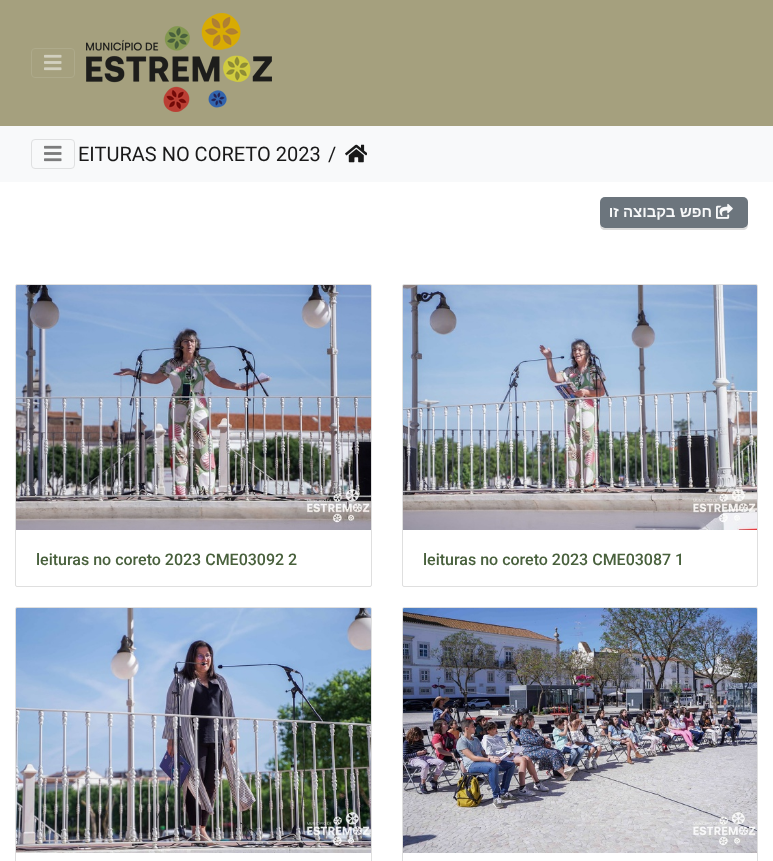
(async () => {
    const canvas = document.querySelector("canvas");
    canvas.width = 773;
    canvas.height = 861;
    const context = canvas.getContext("2d");
    context.miterLimit = 4;
    context.fontKerning = "normal";
    function write(s, x, y, font, color) {
        context.font = font;
        context.fillStyle = color;
        context.fillText(s, x, y);
    }
    function block(x, y, w, h, color) {
        context.fillStyle = color;
        context.fillRect(x, y, w, h);
    }
    function card(x, y, w, h, r, color) {
        context.fillStyle = color;
        context.beginPath();
        context.roundRect(x, y, w, h, r);
        context.fill();
    }
    async function photo(src, x, y, w, h) {
        const img = new Image();
        img.src = src;
        await img.decode();
        context.drawImage(img, x, y, w, h);
    }

    block(0, 0, 773, 861, "rgb(255, 255, 255)");
    block(0, 0, 773, 126, "rgb(165, 160, 126)");
    context.beginPath();
    context.roundRect(31.5, 48.5, 43, 29, 3.5);
    context.strokeStyle = "rgb(174, 170, 139)";
    context.stroke();
    await photo("media/1.png", 44, 54, 18, 17);
    await photo("media/2.png", 86, 13, 186, 99);
    block(0, 126, 773, 56, "rgb(248, 249, 250)");
    context.beginPath();
    context.roundRect(31.5, 139.5, 43, 29, 3.5);
    context.strokeStyle = "rgb(223, 224, 225)";
    context.stroke();
    await photo("media/3.png", 44, 145, 18, 17);
    write("EITURAS NO CORETO 2023", 78, 161, "20px Roboto", "rgb(25, 25, 25)");
    write("/", 328, 161, "20px Roboto", "rgb(25, 25, 25)");
    await photo("media/4.png", 345, 144, 22, 19);
    context.fillStyle = "rgb(219, 219, 219)";
    context.beginPath();
    context.moveTo(600, 223);
    context.lineTo(600, 225);
    context.bezierCurveTo(600, 228, 602, 230, 605, 230);
    context.lineTo(743, 230);
    context.bezierCurveTo(746, 230, 748, 228, 748, 225);
    context.lineTo(748, 223);
    context.bezierCurveTo(748, 226, 746, 228, 743, 228);
    context.lineTo(605, 228);
    context.bezierCurveTo(602, 228, 600, 226, 600, 223);
    context.closePath();
    context.fill();
    card(600, 197, 148, 31, 5, "rgb(108, 117, 125)");
    context.direction = "rtl";
    write("חפש בקבוצה זו", 712, 217, "bold 15px Liberation Sans", "rgb(248, 249, 250)");
    await photo("media/5.png", 716, 203, 17, 16);
    context.beginPath();
    context.roundRect(15.5, 284.5, 356, 302, 1.5);
    context.strokeStyle = "rgb(223, 223, 223)";
    context.stroke();
    await photo("media/6.png", 16, 285, 355, 245);
    context.direction = "ltr";
    write("leituras no coreto 2023 CME03092 2", 36, 565, "500 16px Roboto", "rgb(72, 96, 60)");
    context.beginPath();
    context.roundRect(402.5, 284.5, 355, 302, 1.5);
    context.stroke();
    await photo("media/7.png", 403, 285, 354, 245);
    write("leituras no coreto 2023 CME03087 1", 423, 565, "500 16px Roboto", "rgb(72, 96, 60)");
    context.beginPath();
    context.roundRect(15.5, 607.5, 356, 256, 1.5);
    context.stroke();
    await photo("media/8.png", 16, 608, 355, 245);
    context.beginPath();
    context.roundRect(402.5, 607.5, 355, 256, 1.5);
    context.stroke();
    await photo("media/9.png", 403, 608, 354, 245);
})();
